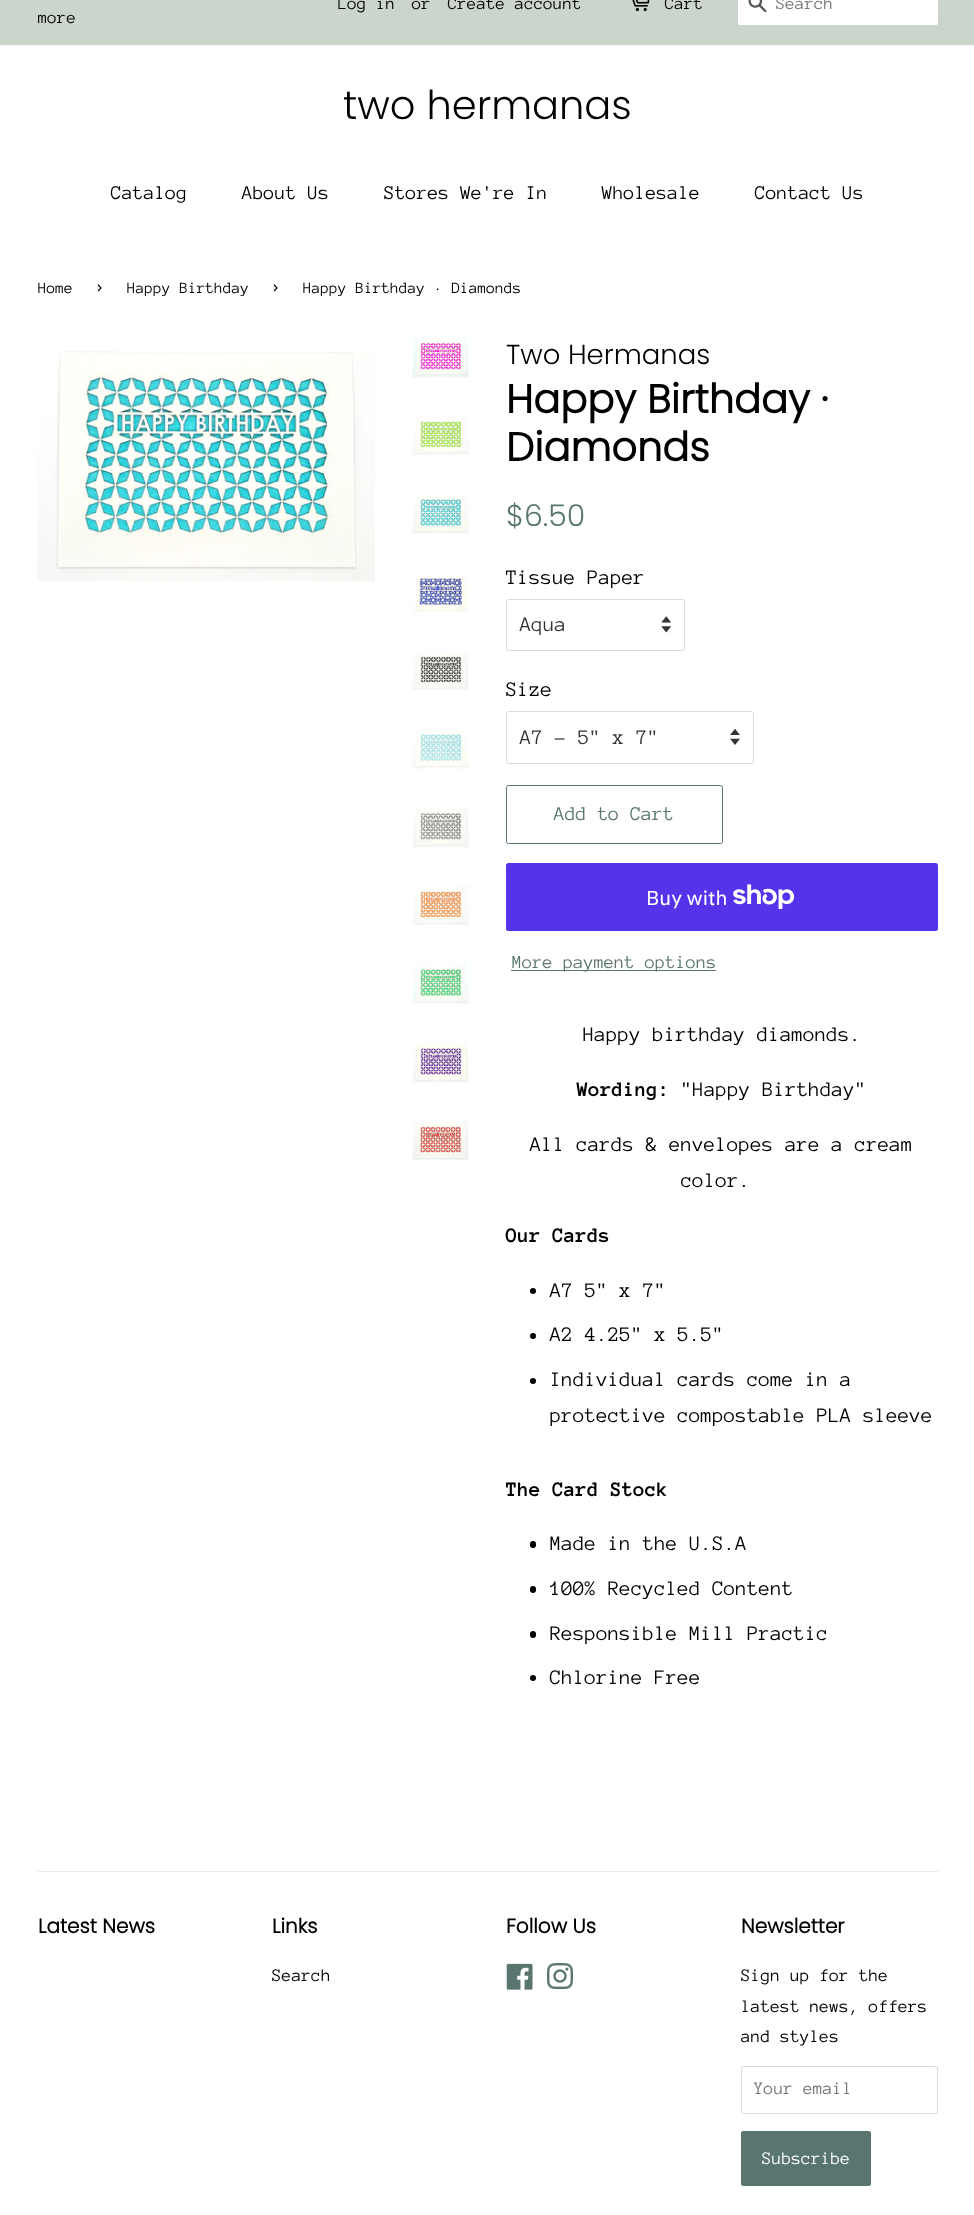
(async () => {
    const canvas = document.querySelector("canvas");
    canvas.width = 974;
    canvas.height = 2215;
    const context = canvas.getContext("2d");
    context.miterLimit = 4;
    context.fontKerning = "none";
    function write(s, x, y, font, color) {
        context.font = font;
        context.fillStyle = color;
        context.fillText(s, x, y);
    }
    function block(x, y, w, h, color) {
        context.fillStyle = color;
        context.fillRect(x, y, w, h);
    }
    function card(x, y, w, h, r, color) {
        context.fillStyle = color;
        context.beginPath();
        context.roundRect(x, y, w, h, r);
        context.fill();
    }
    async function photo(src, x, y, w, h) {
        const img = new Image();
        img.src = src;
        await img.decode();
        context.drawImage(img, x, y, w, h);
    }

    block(0, 0, 974, 2215, "rgb(255, 255, 255)");
    block(0, 0, 974, 45, "rgb(203, 213, 204)");
    write("Log in", 338, 9, "17.5px Anonymous Pro", "rgb(0, 0, 0)");
    write("or", 412, 9, "17.5px Anonymous Pro", "rgb(0, 0, 0)");
    write("Create account", 448, 9, "17.5px Anonymous Pro", "rgb(0, 0, 0)");
    await photo("media/1.png", 632, 0, 18, 12);
    write("Cart", 665, 9, "17.5px Anonymous Pro", "rgb(0, 0, 0)");
    card(738, -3, 200, 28, 2.5, "rgb(255, 255, 255)");
    await photo("media/2.png", 748, 0, 19, 13);
    write("Search", 776, 9, "17.5px Anonymous Pro", "rgb(117, 117, 117)");
    context.save();
    context.beginPath();
    context.rect(38, 0, 300, 35);
    context.clip();
    write("more", 38, 23, "17.5px Anonymous Pro", "rgb(0, 0, 0)");
    context.restore();
    write("two hermanas", 343, 119, "300 40px Poppins", "rgb(0, 0, 0)");
    write("Catalog", 111, 199, "20px Anonymous Pro", "rgb(0, 0, 0)");
    write("About Us", 242, 199, "20px Anonymous Pro", "rgb(0, 0, 0)");
    write("Stores We're In", 384, 199, "20px Anonymous Pro", "rgb(0, 0, 0)");
    write("Wholesale", 602, 199, "20px Anonymous Pro", "rgb(0, 0, 0)");
    write("Contact Us", 755, 199, "20px Anonymous Pro", "rgb(0, 0, 0)");
    write("Home", 38, 293, "16px Anonymous Pro", "rgb(0, 0, 0)");
    write("›", 94, 293, "22px Anonymous Pro", "rgb(0, 0, 0)");
    write("Happy Birthday", 127, 293, "16px Anonymous Pro", "rgb(0, 0, 0)");
    write("›", 270, 293, "22px Anonymous Pro", "rgb(0, 0, 0)");
    write("Happy Birthday · Diamonds", 303, 293, "16px Anonymous Pro", "rgb(0, 0, 0)");
    await photo("media/3.png", 37, 351, 338, 231);
    await photo("media/4.png", 412, 336, 57, 42);
    await photo("media/5.png", 412, 417, 57, 38);
    await photo("media/6.png", 412, 494, 57, 40);
    await photo("media/7.png", 412, 574, 57, 39);
    await photo("media/8.png", 412, 650, 57, 40);
    await photo("media/9.png", 412, 730, 57, 39);
    await photo("media/10.png", 412, 807, 57, 41);
    await photo("media/11.png", 412, 885, 57, 40);
    await photo("media/12.png", 412, 962, 57, 42);
    await photo("media/13.png", 412, 1041, 57, 42);
    await photo("media/14.png", 412, 1120, 57, 40);
    write("Two Hermanas", 506, 364, "300 27.5px Poppins", "rgb(0, 0, 0)");
    write("Happy Birthday ·", 506, 413, "bold 40px Poppins", "rgb(0, 0, 0)");
    write("Diamonds", 506, 461, "bold 40px Poppins", "rgb(0, 0, 0)");
    write("$6.50", 506, 526, "300 30px Poppins", "rgb(89, 117, 111)");
    write("Tissue Paper", 506, 584, "21.25px Anonymous Pro", "rgb(0, 0, 0)");
    await photo("media/15.png", 661, 616, 10, 17);
    context.beginPath();
    context.roundRect(506.5, 599.5, 178, 51, 2);
    context.strokeStyle = "rgb(217, 217, 217)";
    context.stroke();
    write("Aqua", 520, 631, "21.25px Anonymous Pro", "rgb(51, 51, 51)");
    write("Size", 506, 696, "21.25px Anonymous Pro", "rgb(0, 0, 0)");
    await photo("media/16.png", 730, 729, 10, 16);
    context.beginPath();
    context.roundRect(506.5, 711.5, 247, 52, 2);
    context.stroke();
    write("A7 - 5\" x 7\"", 520, 744, "21.25px Anonymous Pro", "rgb(51, 51, 51)");
    context.beginPath();
    context.roundRect(506.5, 785.5, 216, 58, 2);
    context.strokeStyle = "rgb(89, 117, 111)";
    context.stroke();
    write("Add to Cart", 554, 820, "20px Anonymous Pro", "rgb(89, 117, 111)");
    card(506, 863, 432, 68, 2.5, "rgb(84, 51, 235)");
    write("Buy with", 646, 905, "20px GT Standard", "rgb(255, 255, 255)");
    await photo("media/17.png", 733, 884, 62, 25);
    block(511, 970, 205, 1, "rgb(89, 117, 111)");
    write("More payment options", 512, 968, "18.75px Anonymous Pro", "rgb(89, 117, 111)");
    write("Happy birthday diamonds.", 583, 1041, "21.25px Anonymous Pro", "rgb(0, 0, 0)");
    write("Wording:", 577, 1096, "bold 21.25px Anonymous Pro", "rgb(0, 0, 0)");
    write("\"Happy Birthday\"", 681, 1096, "21.25px Anonymous Pro", "rgb(0, 0, 0)");
    write("All cards & envelopes are a cream", 530, 1151, "21.25px Anonymous Pro", "rgb(0, 0, 0)");
    write("color.", 681, 1187, "21.25px Anonymous Pro", "rgb(0, 0, 0)");
    write("Our Cards", 506, 1242, "bold 21.25px Anonymous Pro", "rgb(0, 0, 0)");
    context.beginPath();
    context.arc(533, 1291, 3, 0, Math.PI * 2);
    context.fill();
    write("A7 5\" x 7\"", 550, 1297, "21.25px Anonymous Pro", "rgb(0, 0, 0)");
    context.beginPath();
    context.arc(533, 1336, 3, 0, Math.PI * 2);
    context.fill();
    write("A2 4.25\" x 5.5\"", 550, 1341, "21.25px Anonymous Pro", "rgb(0, 0, 0)");
    context.beginPath();
    context.arc(533, 1381, 3, 0, Math.PI * 2);
    context.fill();
    write("Individual cards come in a", 550, 1386, "21.25px Anonymous Pro", "rgb(0, 0, 0)");
    write("protective compostable PLA sleeve", 550, 1422, "21.25px Anonymous Pro", "rgb(0, 0, 0)");
    write("The Card Stock", 506, 1496, "bold 21.25px Anonymous Pro", "rgb(0, 0, 0)");
    card(530, 1541, 6, 7, 3, "rgb(0, 0, 0)");
    write("Made in the U.S.A", 550, 1550, "21.25px Anonymous Pro", "rgb(0, 0, 0)");
    card(530, 1586, 6, 7, 3, "rgb(0, 0, 0)");
    write("100% Recycled Content", 550, 1595, "21.25px Anonymous Pro", "rgb(0, 0, 0)");
    card(530, 1631, 6, 7, 3, "rgb(0, 0, 0)");
    write("Responsible Mill Practic", 550, 1640, "21.25px Anonymous Pro", "rgb(0, 0, 0)");
    context.beginPath();
    context.arc(533, 1678, 3, 0, Math.PI * 2);
    context.fill();
    write("Chlorine Free", 550, 1684, "21.25px Anonymous Pro", "rgb(0, 0, 0)");
    block(38, 1871, 900, 1, "rgb(235, 235, 235)");
    write("Latest News", 38, 1933, "bold 20px Poppins", "rgb(0, 0, 0)");
    write("Links", 272, 1933, "bold 20px Poppins", "rgb(0, 0, 0)");
    write("Search", 272, 1981, "18px Anonymous Pro", "rgb(0, 0, 0)");
    write("Follow Us", 506, 1933, "bold 20px Poppins", "rgb(0, 0, 0)");
    await photo("media/18.png", 506, 1963, 27, 27);
    await photo("media/19.png", 547, 1963, 26, 26);
    write("Newsletter", 741, 1933, "bold 20px Poppins", "rgb(0, 0, 0)");
    write("Sign up for the", 741, 1981, "18px Anonymous Pro", "rgb(0, 0, 0)");
    write("latest news, offers", 741, 2012, "18px Anonymous Pro", "rgb(0, 0, 0)");
    write("and styles", 741, 2042, "18px Anonymous Pro", "rgb(0, 0, 0)");
    context.beginPath();
    context.roundRect(741.5, 2066.5, 196, 47, 2);
    context.strokeStyle = "rgb(217, 217, 217)";
    context.stroke();
    write("Your email", 754, 2094, "18px Anonymous Pro", "rgb(117, 117, 117)");
    card(741, 2131, 130, 55, 2.5, "rgb(89, 117, 111)");
    write("Subscribe", 762, 2164, "18px Anonymous Pro", "rgb(255, 255, 255)");
})();
